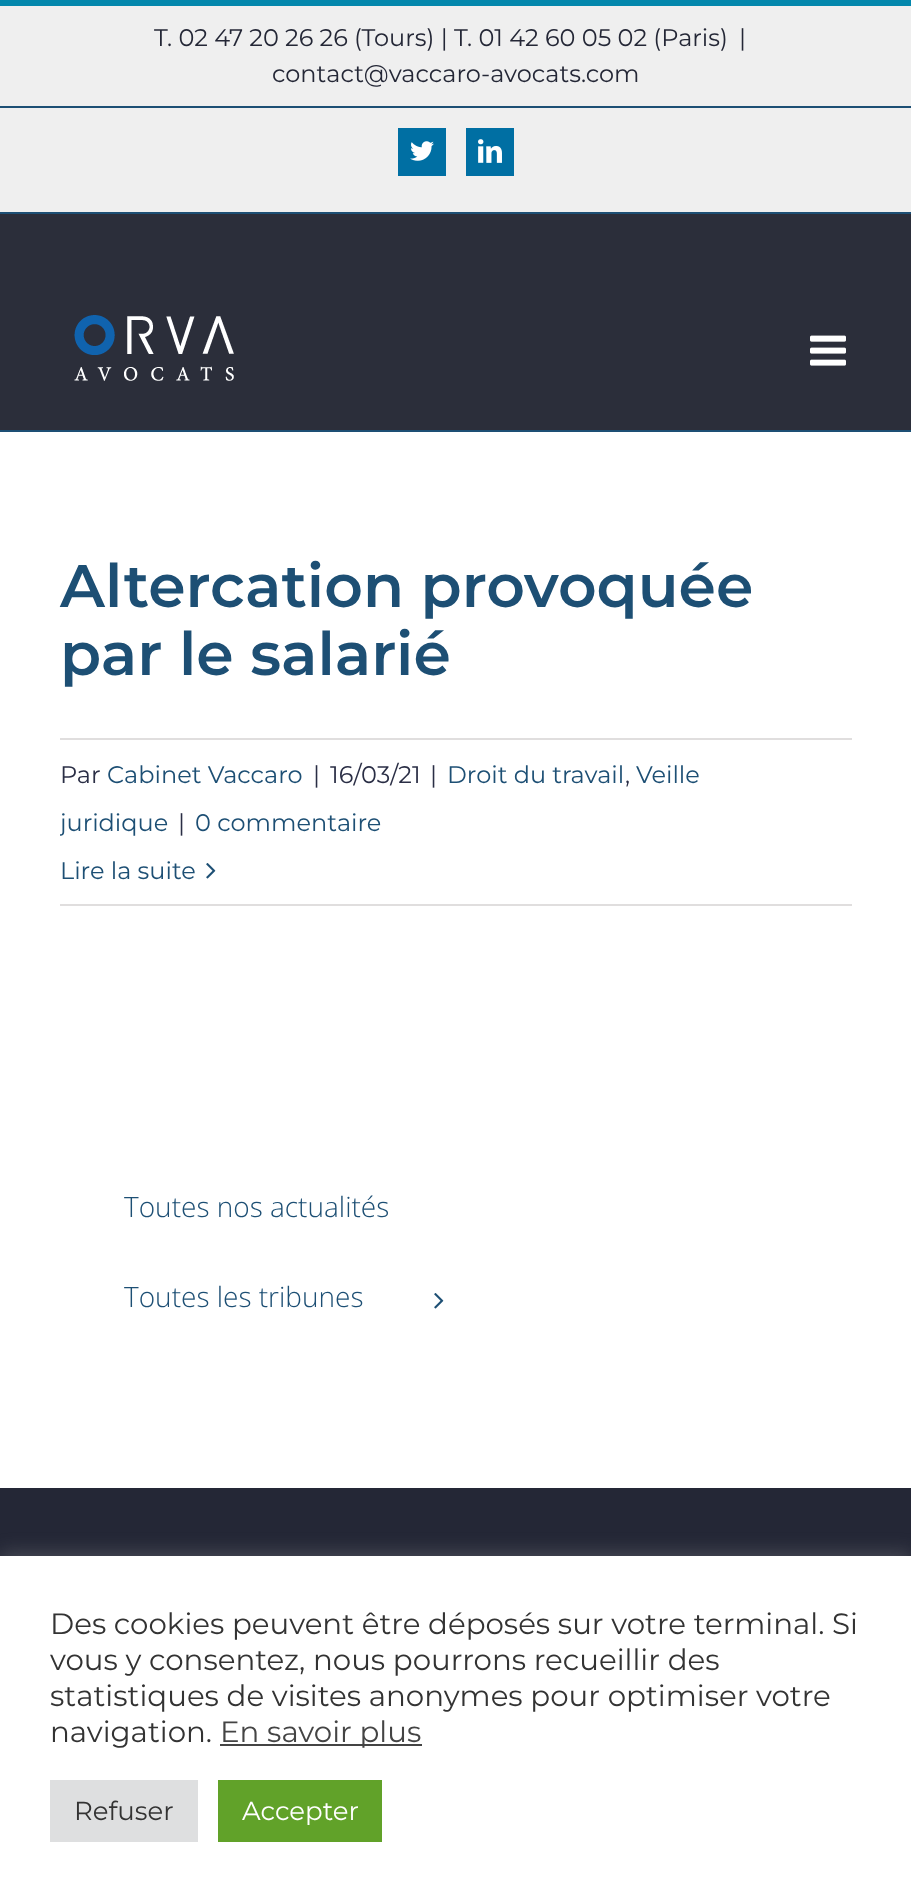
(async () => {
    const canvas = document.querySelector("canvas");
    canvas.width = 911;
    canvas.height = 1902;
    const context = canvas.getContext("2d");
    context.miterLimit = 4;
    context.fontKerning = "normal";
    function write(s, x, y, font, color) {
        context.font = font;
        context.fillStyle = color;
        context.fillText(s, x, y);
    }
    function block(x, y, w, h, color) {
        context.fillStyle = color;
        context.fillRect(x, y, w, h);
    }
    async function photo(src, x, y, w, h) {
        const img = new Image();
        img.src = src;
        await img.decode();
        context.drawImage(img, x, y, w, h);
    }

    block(0, 0, 911, 1902, "rgb(255, 255, 255)");
    block(0, 6, 911, 206, "rgb(239, 239, 239)");
    block(0, 0, 911, 6, "rgb(3, 135, 172)");
    block(0, 212, 911, 2, "rgb(29, 79, 116)");
    block(0, 106, 911, 2, "rgb(29, 79, 116)");
    write("T. 02 47 20 26 26 (Tours) | T. 01 42 60 05 02 (Paris)", 154, 46, "24px Montserrat", "rgb(36, 39, 54)");
    write("|", 739, 46, "24px Montserrat", "rgb(36, 39, 54)");
    write("contact@vaccaro-avocats.com", 272, 82, "24px Montserrat", "rgb(36, 39, 54)");
    block(398, 128, 48, 48, "rgb(0, 111, 163)");
    await photo("media/1.png", 410, 141, 24, 20);
    block(466, 128, 48, 48, "rgb(0, 111, 163)");
    await photo("media/2.png", 478, 139, 24, 24);
    block(0, 214, 911, 216, "rgb(43, 46, 58)");
    block(0, 430, 911, 2, "rgb(29, 79, 116)");
    await photo("media/3.png", 74, 315, 160, 66);
    await photo("media/4.png", 810, 335, 36, 31);
    write("Altercation provoquée", 60, 607, "600 60px Montserrat", "rgb(29, 79, 116)");
    write("par le salarié", 60, 675, "600 60px Montserrat", "rgb(29, 79, 116)");
    block(60, 738, 792, 2, "rgb(224, 222, 222)");
    block(60, 904, 792, 2, "rgb(224, 222, 222)");
    write("Par", 60, 783, "24px Montserrat", "rgb(42, 46, 69)");
    write("Cabinet Vaccaro", 107, 783, "24px Montserrat", "rgb(29, 79, 116)");
    write("|", 313, 783, "24px Montserrat", "rgb(42, 46, 69)");
    write("16/03/21", 330, 783, "24px Montserrat", "rgb(42, 46, 69)");
    write("|", 430, 783, "24px Montserrat", "rgb(42, 46, 69)");
    write("Droit du travail", 447, 783, "24px Montserrat", "rgb(29, 79, 116)");
    write(",", 625, 783, "24px Montserrat", "rgb(42, 46, 69)");
    write("Veille", 636, 783, "24px Montserrat", "rgb(29, 79, 116)");
    context.save();
    context.beginPath();
    context.rect(60, 740, 792, 164);
    context.clip();
    write("juridique", 60, 831, "24px Montserrat", "rgb(29, 79, 116)");
    context.restore();
    write("|", 178, 831, "24px Montserrat", "rgb(42, 46, 69)");
    write("0 commentaire", 195, 831, "24px Montserrat", "rgb(29, 79, 116)");
    write("Lire la suite", 60, 879, "24px Montserrat", "rgb(29, 79, 116)");
    await photo("media/5.png", 206, 863, 10, 16);
    write("Toutes nos actualités", 124, 1217, "300 28px Open Sans", "rgb(29, 79, 116)");
    write("Toutes les tribunes", 124, 1307, "300 28px Open Sans", "rgb(29, 79, 116)");
    await photo("media/5.png", 434, 1293, 10, 16);
    block(0, 1488, 911, 68, "rgb(36, 39, 54)");
    context.fillStyle = "rgba(172, 171, 171, 0.3)";
    context.filter = "blur(10px)";
    context.beginPath();
    context.rect(0, 1554, 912, 346);
    context.fill();
    context.filter = "none";
    block(0, 1556, 911, 346, "rgb(255, 255, 255)");
    write("Des cookies peuvent être déposés sur votre terminal. Si", 50, 1634, "29.3px Montserrat", "rgb(51, 51, 51)");
    write("vous y consentez, nous pourrons recueillir des", 50, 1670, "29.3px Montserrat", "rgb(51, 51, 51)");
    write("statistiques de visites anonymes pour optimiser votre", 50, 1706, "29.3px Montserrat", "rgb(51, 51, 51)");
    write("navigation.", 50, 1742, "29.3px Montserrat", "rgb(51, 51, 51)");
    block(220, 1744, 202, 2, "rgb(68, 68, 68)");
    write("En savoir plus", 220, 1742, "29.3px Montserrat", "rgb(68, 68, 68)");
    block(50, 1780, 148, 62, "rgb(222, 223, 224)");
    write("Refuser", 74, 1820, "26px Montserrat", "rgb(51, 51, 51)");
    block(218, 1780, 164, 62, "rgb(97, 162, 41)");
    write("Accepter", 242, 1820, "26px Montserrat", "rgb(255, 255, 255)");
})();
